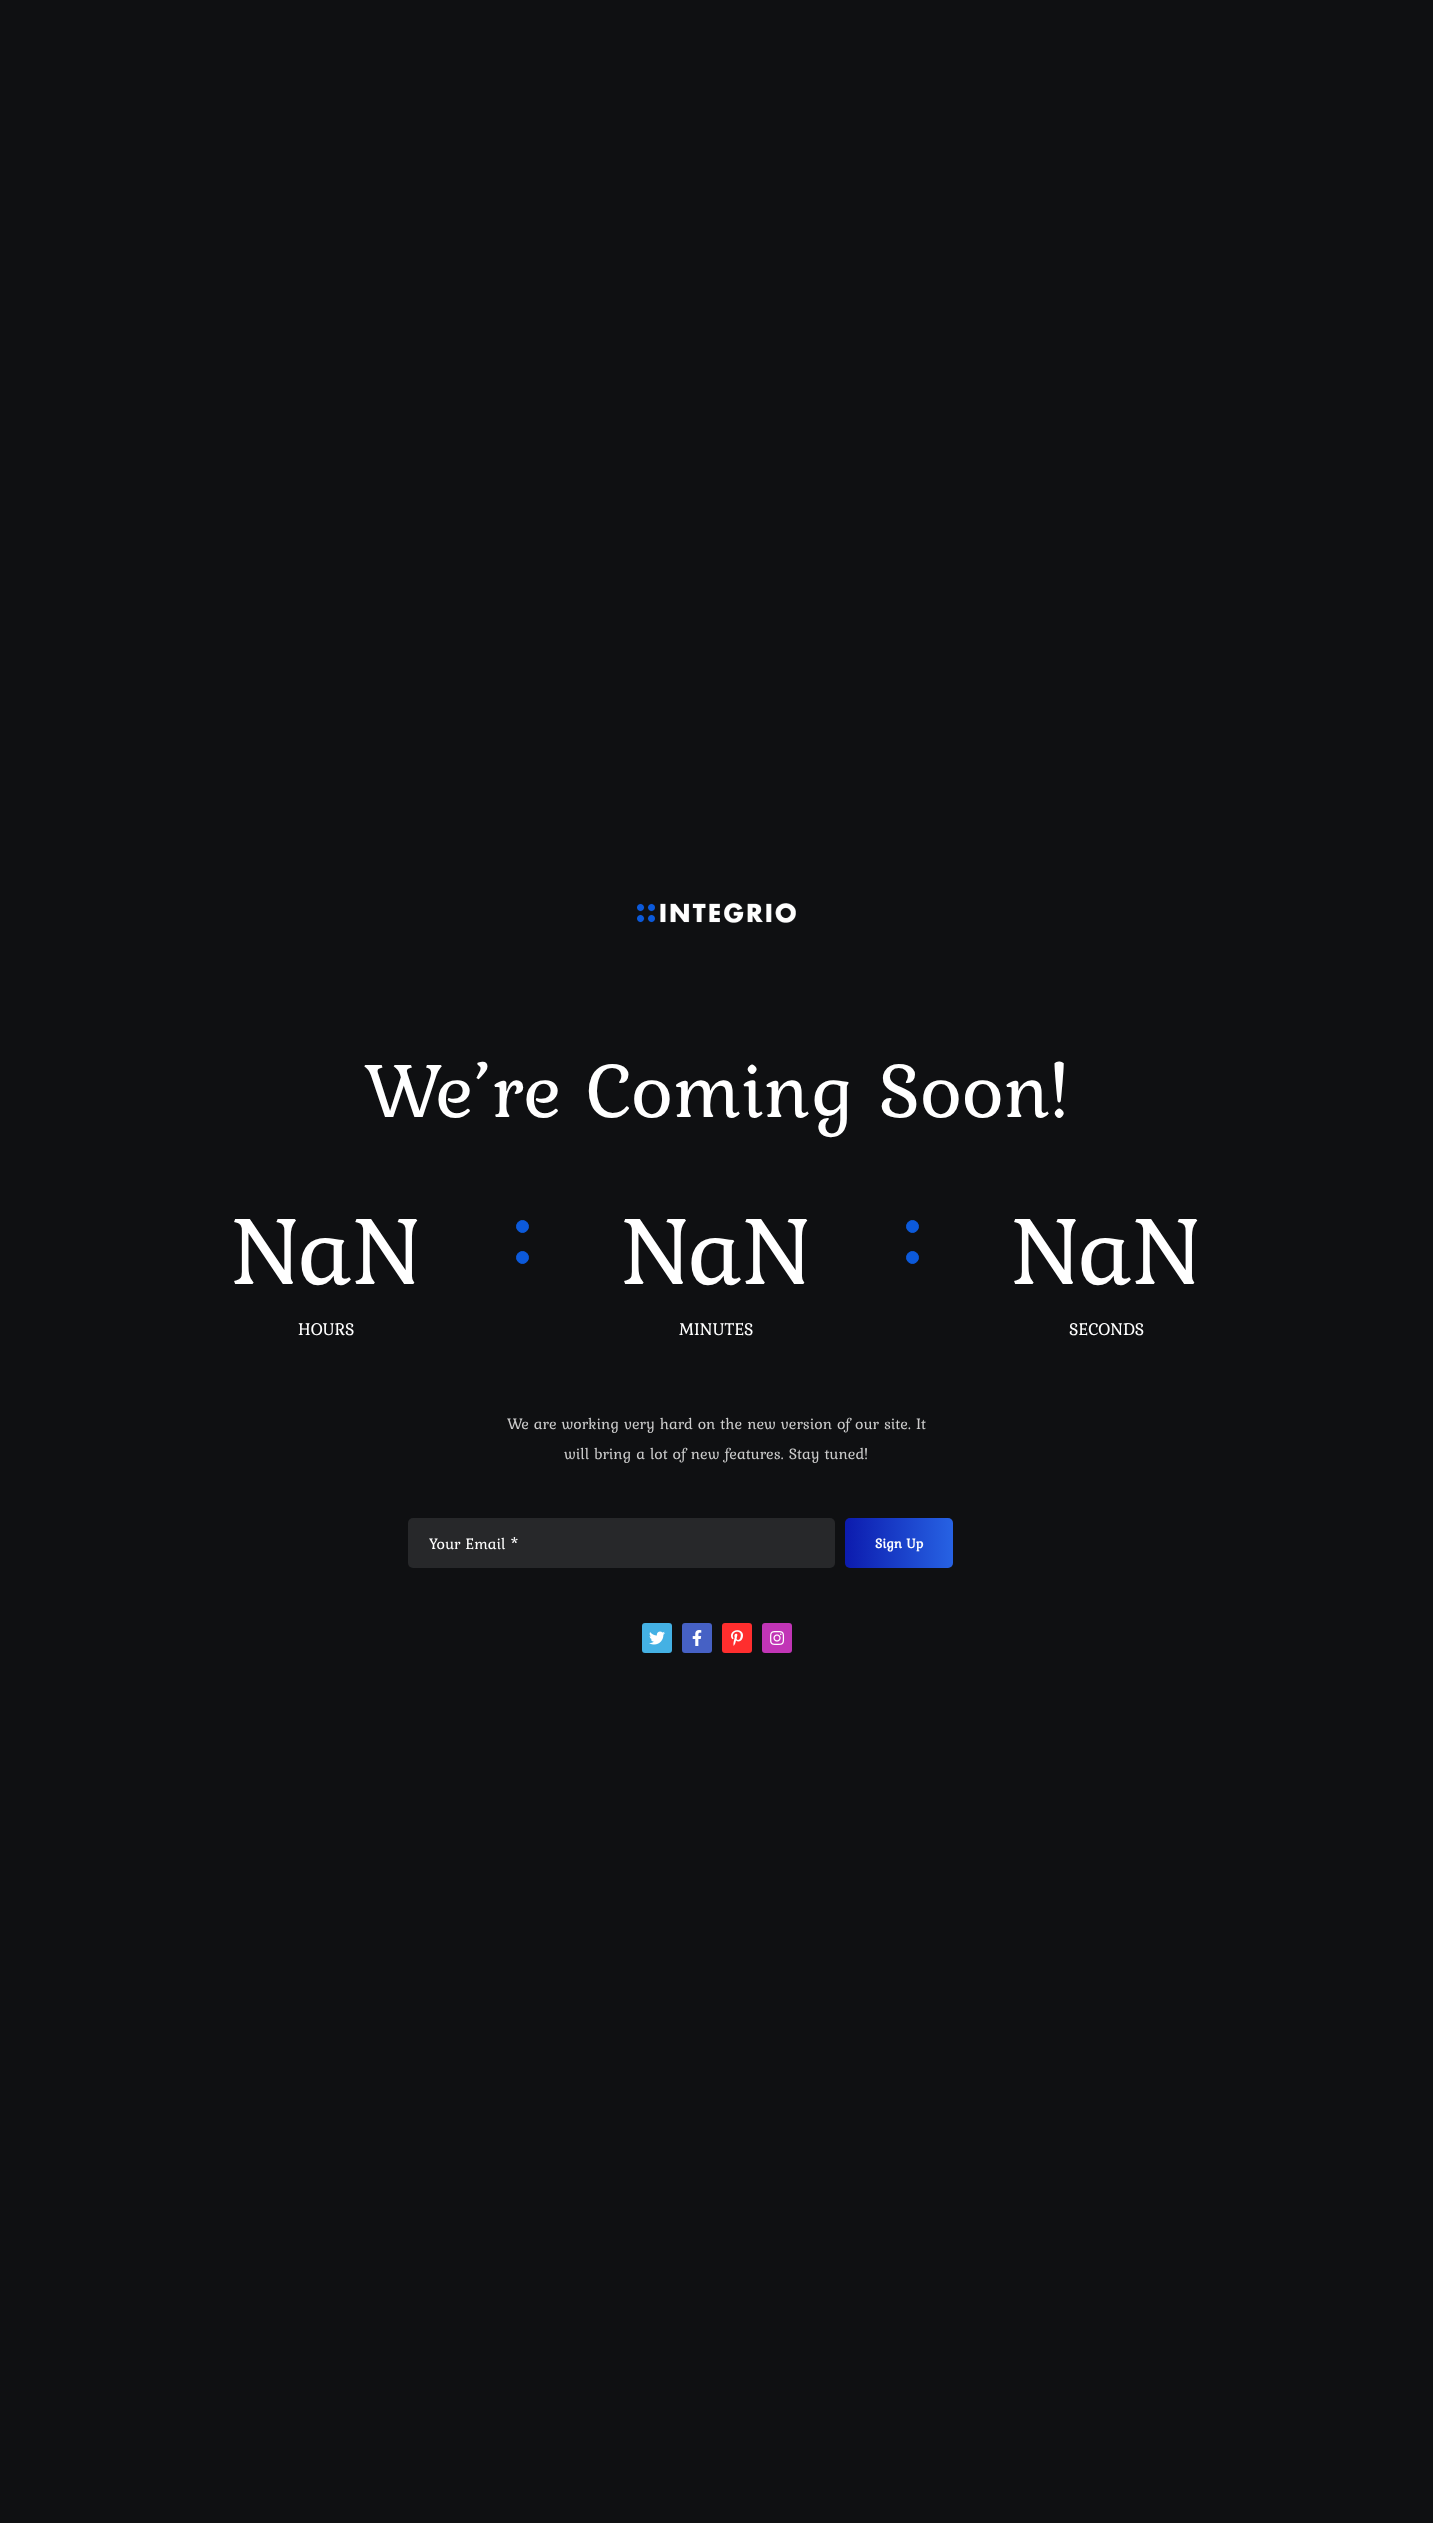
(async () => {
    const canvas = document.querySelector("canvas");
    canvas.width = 1433;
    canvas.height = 2523;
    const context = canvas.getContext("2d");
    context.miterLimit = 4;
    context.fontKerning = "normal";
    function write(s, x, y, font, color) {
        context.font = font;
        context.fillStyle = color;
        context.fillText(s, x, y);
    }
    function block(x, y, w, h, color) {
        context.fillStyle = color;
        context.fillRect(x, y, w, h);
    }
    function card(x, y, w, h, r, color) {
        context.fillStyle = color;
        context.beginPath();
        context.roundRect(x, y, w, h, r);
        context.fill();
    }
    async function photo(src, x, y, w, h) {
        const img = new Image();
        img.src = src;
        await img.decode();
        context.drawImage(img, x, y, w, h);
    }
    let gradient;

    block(0, 0, 1433, 2523, "rgb(15, 16, 18)");
    await photo("media/1.png", 637, 903, 159, 20);
    write("We’re Coming Soon!", 364, 1117, "80px Kurale", "rgb(255, 255, 255)");
    write("NaN", 231, 1284, "100px Kurale", "rgb(255, 255, 255)");
    context.fillStyle = "rgb(12, 90, 219)";
    context.beginPath();
    context.arc(522.5, 1226.5, 6, 0, Math.PI * 2);
    context.fill();
    context.strokeStyle = "rgb(12, 90, 219)";
    context.stroke();
    context.beginPath();
    context.arc(522.5, 1257.5, 6, 0, Math.PI * 2);
    context.fill();
    context.stroke();
    write("HOURS", 298, 1335, "18px Kurale", "rgb(255, 255, 255)");
    write("NaN", 621, 1284, "100px Kurale", "rgb(255, 255, 255)");
    context.fillStyle = "rgb(12, 90, 219)";
    context.beginPath();
    context.arc(912.5, 1226.5, 6, 0, Math.PI * 2);
    context.fill();
    context.stroke();
    context.beginPath();
    context.arc(912.5, 1257.5, 6, 0, Math.PI * 2);
    context.fill();
    context.stroke();
    write("MINUTES", 679, 1335, "18px Kurale", "rgb(255, 255, 255)");
    write("NaN", 1011, 1284, "100px Kurale", "rgb(255, 255, 255)");
    write("SECONDS", 1069, 1335, "18px Kurale", "rgb(255, 255, 255)");
    write("We are working very hard on the new version of our site. It", 507, 1429, "16px Kurale", "rgb(204, 204, 204)");
    write("will bring a lot of new features. Stay tuned!", 564, 1459, "16px Kurale", "rgb(204, 204, 204)");
    card(408, 1518, 427, 50, 5, "rgb(39, 40, 42)");
    write("Your Email *", 429, 1549, "16px Kurale", "rgb(255, 255, 255)");
    gradient = context.createLinearGradient(845, 1543, 1169, 1543);
    gradient.addColorStop(0, "rgb(12, 27, 174)");
    gradient.addColorStop(0.5, "rgb(52, 134, 254)");
    gradient.addColorStop(1, "rgb(12, 27, 174)");
    context.fillStyle = gradient;
    context.beginPath();
    context.roundRect(845, 1518, 108, 50, 5);
    context.fill();
    write("Sign Up", 875, 1548, "bold 14px Kurale", "rgb(255, 255, 255)");
    card(642, 1623, 30, 30, 3, "rgb(68, 177, 228)");
    await photo("media/2.png", 649, 1631, 16, 14);
    card(682, 1623, 30, 30, 3, "rgb(70, 97, 197)");
    await photo("media/3.png", 692, 1630, 10, 16);
    card(722, 1623, 30, 30, 3, "rgb(255, 46, 46)");
    await photo("media/4.png", 731, 1630, 12, 16);
    card(762, 1623, 30, 30, 3, "rgb(193, 53, 182)");
    await photo("media/5.png", 770, 1631, 15, 14);
})();
